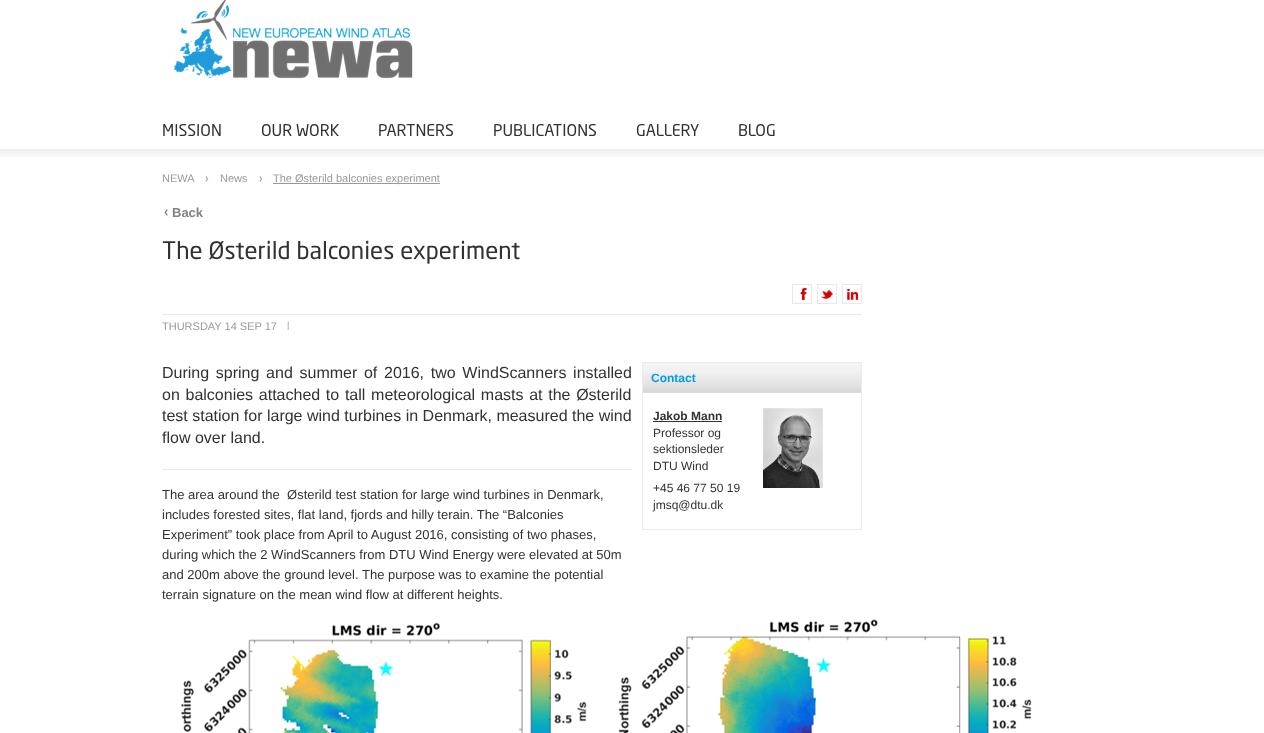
(async () => {
    const canvas = document.querySelector("canvas");
    canvas.width = 1264;
    canvas.height = 733;
    const context = canvas.getContext("2d");
    context.miterLimit = 4;
    context.fontKerning = "normal";
    function write(s, x, y, font, color) {
        context.font = font;
        context.fillStyle = color;
        context.fillText(s, x, y);
    }
    function block(x, y, w, h, color) {
        context.fillStyle = color;
        context.fillRect(x, y, w, h);
    }
    async function photo(src, x, y, w, h) {
        const img = new Image();
        img.src = src;
        await img.decode();
        context.drawImage(img, x, y, w, h);
    }

    block(0, 0, 1264, 733, "rgb(255, 255, 255)");
    await photo("media/1.png", 174, 0, 239, 79);
    write("MISSION", 162, 136, "16px 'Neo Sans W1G'", "rgb(50, 50, 50)");
    write("OUR WORK", 261, 136, "16px 'Neo Sans W1G'", "rgb(50, 50, 50)");
    write("PARTNERS", 378, 136, "16px 'Neo Sans W1G'", "rgb(50, 50, 50)");
    write("PUBLICATIONS", 493, 136, "16px 'Neo Sans W1G'", "rgb(50, 50, 50)");
    write("GALLERY", 636, 136, "16px 'Neo Sans W1G'", "rgb(50, 50, 50)");
    write("BLOG", 738, 136, "16px 'Neo Sans W1G'", "rgb(50, 50, 50)");
    await photo("media/2.png", 0, 149, 1264, 8);
    write("NEWA", 162, 182, "11px Liberation Sans", "rgb(153, 153, 153)");
    await photo("media/3.png", 205, 175, 7, 7);
    write("News", 220, 182, "11px Liberation Sans", "rgb(153, 153, 153)");
    await photo("media/3.png", 259, 175, 7, 7);
    block(273, 183, 167, 1, "rgb(153, 153, 153)");
    write("The Østerild balconies experiment", 273, 182, "11px Liberation Sans", "rgb(153, 153, 153)");
    await photo("media/4.png", 164, 209, 4, 7);
    write("Back", 172, 217, "bold 13px Liberation Sans", "rgb(129, 130, 134)");
    write("The Østerild balconies experiment", 162, 259, "24px 'Neo Sans W1G'", "rgb(50, 50, 50)");
    block(162, 314, 700, 1, "rgb(235, 235, 235)");
    await photo("media/5.png", 792, 284, 20, 20);
    await photo("media/6.png", 817, 284, 20, 20);
    await photo("media/7.png", 842, 284, 20, 20);
    write("THURSDAY 14 SEP 17", 162, 330, "11px Liberation Sans", "rgb(153, 153, 153)");
    write("|", 287, 328, "9px Liberation Sans", "rgb(153, 153, 153)");
    block(162, 469, 470, 1, "rgb(235, 235, 235)");
    context.wordSpacing = "2.25px";
    write("During spring and summer of 2016, two WindScanners installed", 162, 378, "16px Liberation Sans", "rgb(50, 50, 50)");
    context.wordSpacing = "1.25px";
    write("on balconies attached to tall meteorological masts at the Østerild", 162, 400, "16px Liberation Sans", "rgb(50, 50, 50)");
    context.wordSpacing = "0px";
    write("test station for large wind turbines in Denmark, measured the wind", 162, 421, "16px Liberation Sans", "rgb(50, 50, 50)");
    write("flow over land.", 162, 443, "16px Liberation Sans", "rgb(50, 50, 50)");
    context.strokeStyle = "rgb(235, 235, 235)";
    context.strokeRect(642.5, 362.5, 219, 167);
    block(643, 389, 218, 4, "rgb(218, 218, 218)");
    await photo("media/8.png", 643, 363, 218, 26);
    write("Contact", 651, 382, "bold 12px Liberation Sans", "rgb(0, 157, 224)");
    write("Jakob Mann", 653, 420, "bold 12px Liberation Sans", "rgb(50, 50, 50)");
    block(653, 421, 69, 1, "rgb(50, 50, 50)");
    write("Professor og", 653, 437, "12px Liberation Sans", "rgb(50, 50, 50)");
    write("sektionsleder", 653, 453, "12px Liberation Sans", "rgb(50, 50, 50)");
    write("DTU Wind", 653, 470, "12px Liberation Sans", "rgb(50, 50, 50)");
    write("+45 46 77 50 19", 653, 492, "12px Liberation Sans", "rgb(50, 50, 50)");
    write("jmsq@dtu.dk", 653, 509, "12px Liberation Sans", "rgb(50, 50, 50)");
    await photo("media/9.png", 763, 408, 60, 80);
    write("The area around the  Østerild test station for large wind turbines in Denmark,", 162, 499, "13px Liberation Sans", "rgb(50, 50, 50)");
    write("includes forested sites, flat land, fjords and hilly terain. The “Balconies", 162, 519, "13px Liberation Sans", "rgb(50, 50, 50)");
    write("Experiment” took place from April to August 2016, consisting of two phases,", 162, 539, "13px Liberation Sans", "rgb(50, 50, 50)");
    write("during which the 2 WindScanners from DTU Wind Energy were elevated at 50m", 162, 559, "13px Liberation Sans", "rgb(50, 50, 50)");
    write("and 200m above the ground level. The purpose was to examine the potential", 162, 579, "13px Liberation Sans", "rgb(50, 50, 50)");
    write("terrain signature on the mean wind flow at different heights.", 162, 599, "13px Liberation Sans", "rgb(50, 50, 50)");
    await photo("media/10.png", 181, 619, 851, 114);
})();
